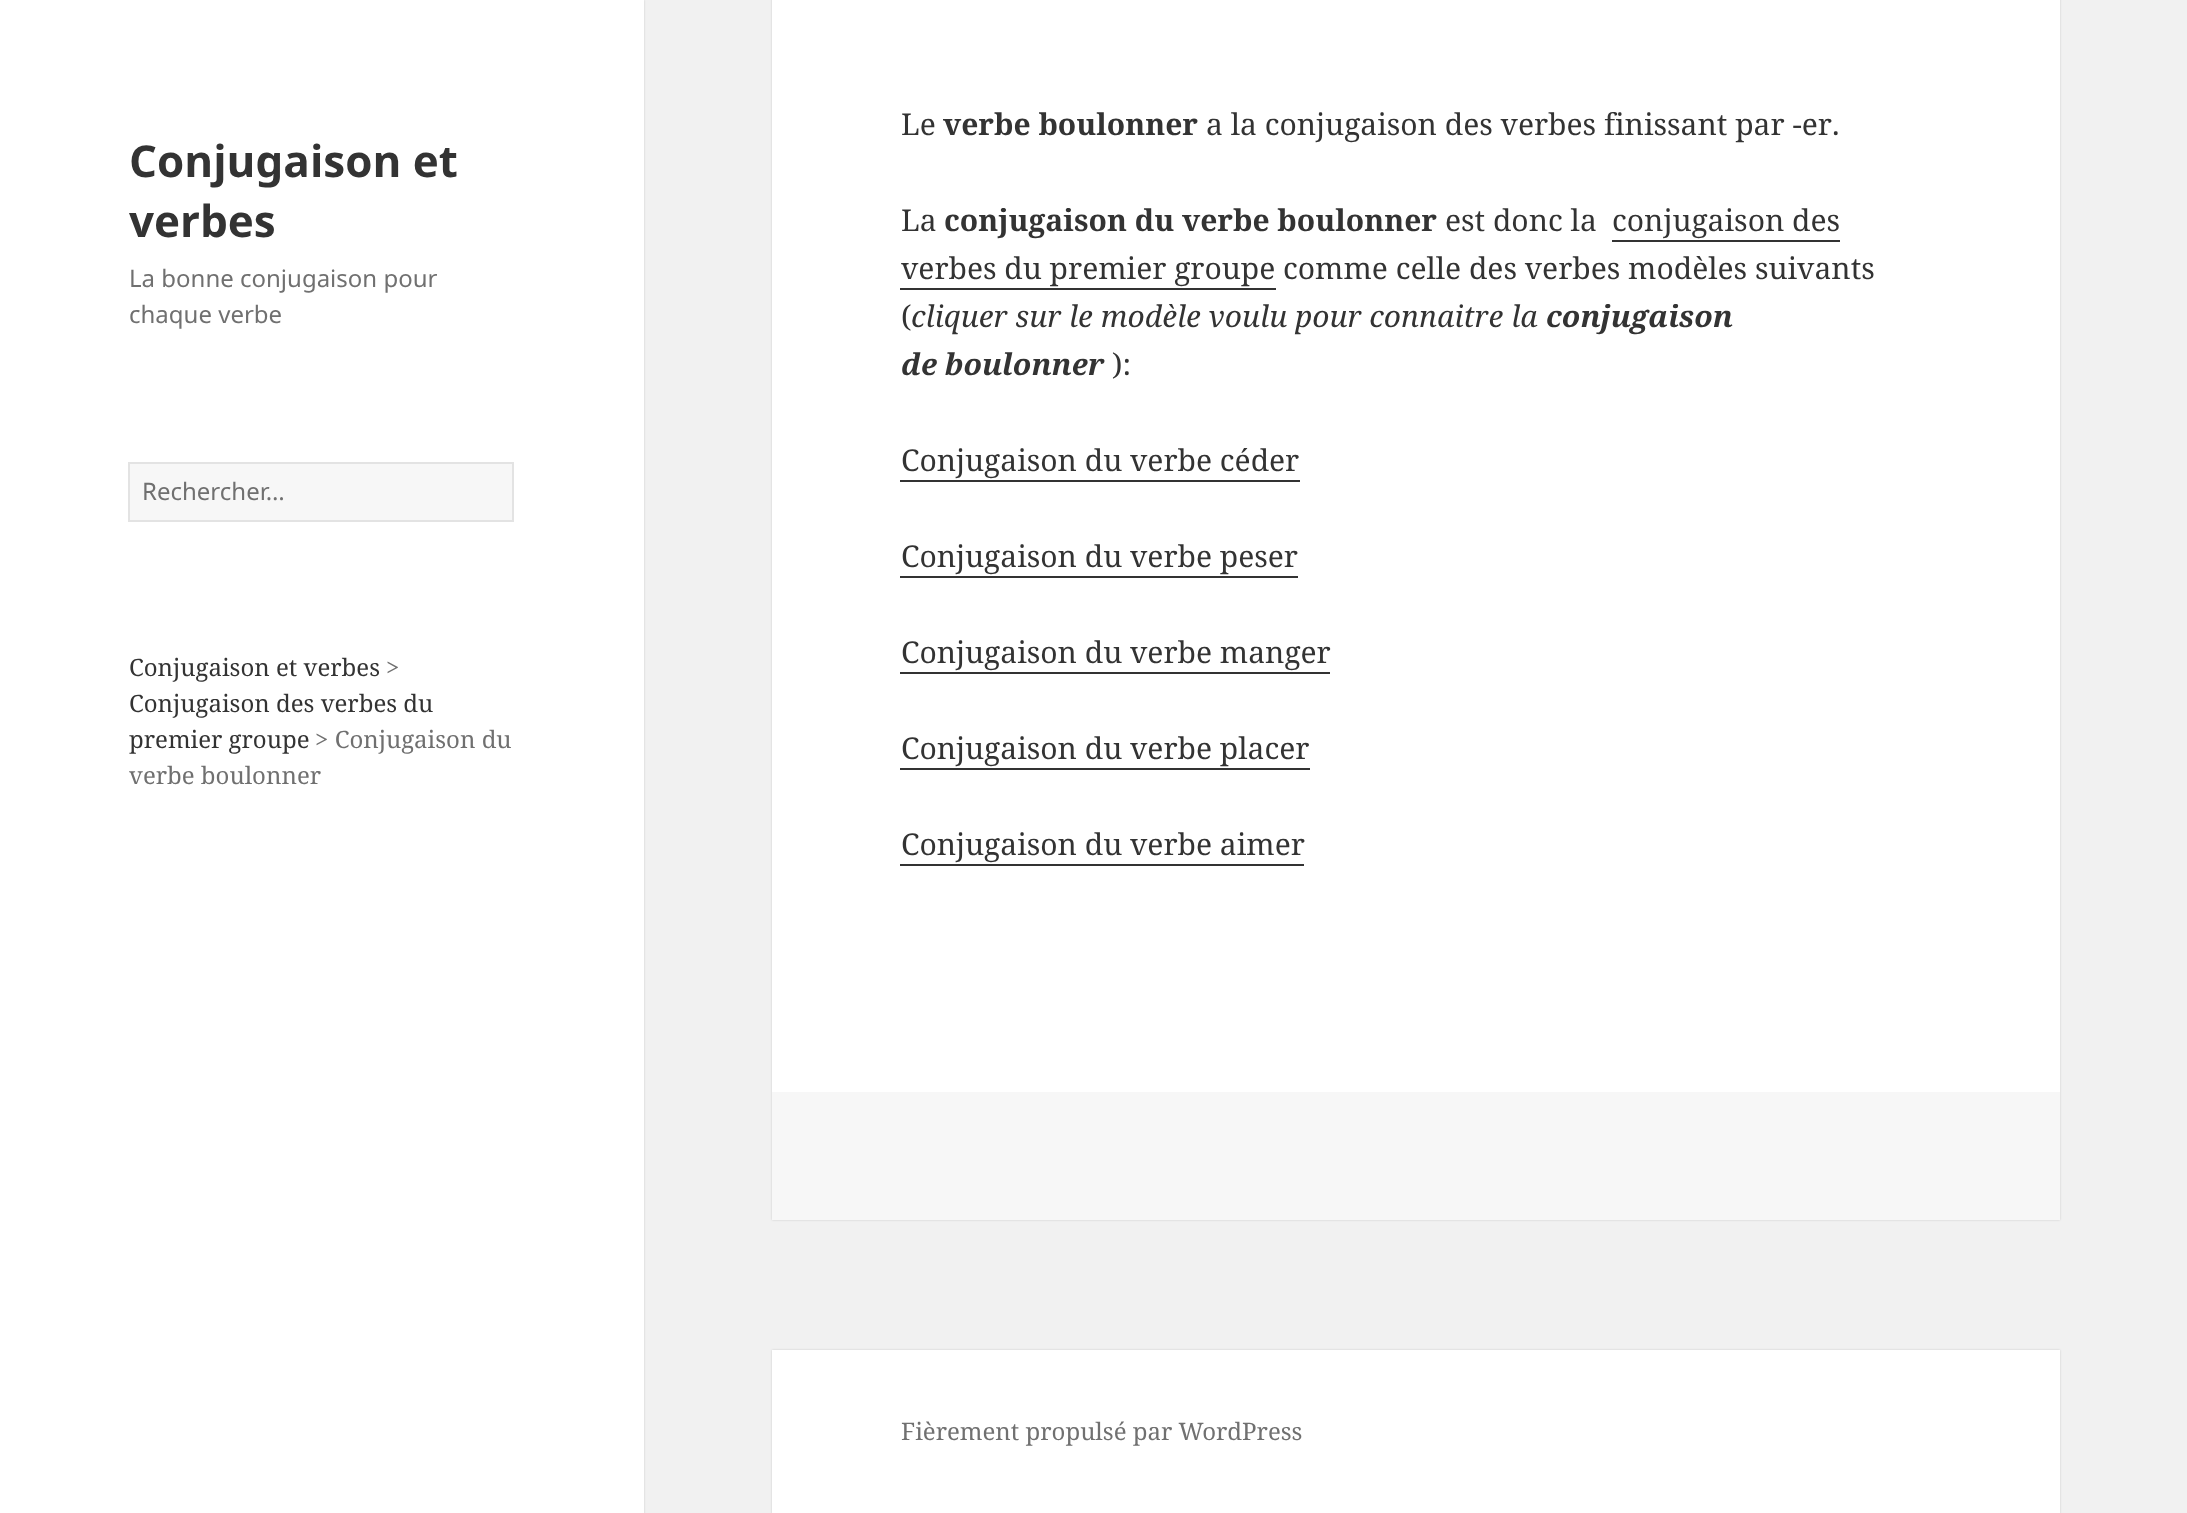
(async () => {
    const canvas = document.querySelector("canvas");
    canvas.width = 2187;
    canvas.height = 1513;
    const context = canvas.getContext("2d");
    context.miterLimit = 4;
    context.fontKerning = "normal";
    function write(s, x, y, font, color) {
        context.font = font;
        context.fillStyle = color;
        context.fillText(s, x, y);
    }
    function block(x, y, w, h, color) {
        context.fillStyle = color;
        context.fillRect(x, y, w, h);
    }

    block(0, 0, 2187, 1513, "rgb(241, 241, 241)");
    context.fillStyle = "rgba(0, 0, 0, 0.15)";
    context.filter = "blur(1px)";
    context.beginPath();
    context.rect(0, 0, 644, 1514);
    context.fill();
    context.filter = "none";
    block(0, 0, 644, 1513, "rgb(255, 255, 255)");
    write("Conjugaison et", 129, 177, "bold 44px Noto Sans", "rgb(51, 51, 51)");
    write("verbes", 129, 237, "bold 44px Noto Sans", "rgb(51, 51, 51)");
    write("La bonne conjugaison pour", 129, 287, "24px Noto Sans", "rgb(112, 112, 112)");
    write("chaque verbe", 129, 323, "24px Noto Sans", "rgb(112, 112, 112)");
    context.fillStyle = "rgb(247, 247, 247)";
    context.beginPath();
    context.rect(129, 463, 384, 58);
    context.fill();
    context.strokeStyle = "rgb(227, 227, 227)";
    context.lineWidth = 2;
    context.stroke();
    write("Rechercher…", 142, 500, "24px Noto Sans", "rgb(112, 112, 112)");
    write("Conjugaison et verbes", 129, 676, "24px Noto Serif", "rgb(51, 51, 51)");
    write(">", 386, 676, "24px Noto Serif", "rgb(112, 112, 112)");
    write("Conjugaison des verbes du", 129, 712, "24px Noto Serif", "rgb(51, 51, 51)");
    write("premier groupe", 129, 748, "24px Noto Serif", "rgb(51, 51, 51)");
    write("> Conjugaison du", 315, 748, "24px Noto Serif", "rgb(112, 112, 112)");
    write("verbe boulonner", 129, 784, "24px Noto Serif", "rgb(112, 112, 112)");
    context.fillStyle = "rgba(0, 0, 0, 0.15)";
    context.filter = "blur(1px)";
    context.beginPath();
    context.rect(772, -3, 1288, 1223);
    context.fill();
    context.filter = "none";
    block(772, 0, 1288, 1092, "rgb(255, 255, 255)");
    write("Le", 901, 135, "30px Noto Serif", "rgb(51, 51, 51)");
    write("verbe boulonner", 943, 135, "bold 30px Noto Serif", "rgb(51, 51, 51)");
    write("a la conjugaison des verbes finissant par -er.", 1206, 135, "30px Noto Serif", "rgb(51, 51, 51)");
    write("La", 901, 231, "30px Noto Serif", "rgb(51, 51, 51)");
    write("conjugaison du verbe boulonner", 944, 231, "bold 30px Noto Serif", "rgb(51, 51, 51)");
    write("est donc la", 1445, 231, "30px Noto Serif", "rgb(51, 51, 51)");
    write("conjugaison des", 1612, 231, "30px Noto Serif", "rgb(51, 51, 51)");
    block(1612, 240, 228, 2, "rgb(51, 51, 51)");
    write("verbes du premier groupe comme celle des verbes modèles suivants", 901, 279, "30px Noto Serif", "rgb(51, 51, 51)");
    block(900, 288, 376, 2, "rgb(51, 51, 51)");
    write("(", 901, 327, "30px Noto Serif", "rgb(51, 51, 51)");
    write("cliquer sur le modèle voulu pour connaitre la", 911, 327, "italic 30px Noto Serif", "rgb(51, 51, 51)");
    write("conjugaison", 1546, 327, "italic bold 30px Noto Serif", "rgb(51, 51, 51)");
    write("de boulonner", 901, 375, "italic bold 30px Noto Serif", "rgb(51, 51, 51)");
    write("):", 1112, 375, "30px Noto Serif", "rgb(51, 51, 51)");
    write("Conjugaison du verbe céder", 901, 471, "30px Noto Serif", "rgb(51, 51, 51)");
    block(900, 480, 400, 2, "rgb(51, 51, 51)");
    write("Conjugaison du verbe peser", 901, 567, "30px Noto Serif", "rgb(51, 51, 51)");
    block(900, 576, 398, 2, "rgb(51, 51, 51)");
    write("Conjugaison du verbe manger", 901, 663, "30px Noto Serif", "rgb(51, 51, 51)");
    block(900, 672, 430, 2, "rgb(51, 51, 51)");
    write("Conjugaison du verbe placer", 901, 759, "30px Noto Serif", "rgb(51, 51, 51)");
    block(900, 768, 410, 2, "rgb(51, 51, 51)");
    write("Conjugaison du verbe aimer", 901, 855, "30px Noto Serif", "rgb(51, 51, 51)");
    block(900, 864, 404, 2, "rgb(51, 51, 51)");
    block(772, 1092, 1288, 128, "rgb(247, 247, 247)");
    context.fillStyle = "rgba(0, 0, 0, 0.15)";
    context.filter = "blur(1px)";
    context.beginPath();
    context.rect(772, 1350, 1288, 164);
    context.fill();
    context.filter = "none";
    block(772, 1350, 1288, 163, "rgb(255, 255, 255)");
    write("Fièrement propulsé par WordPress", 901, 1440, "24px Noto Serif", "rgb(112, 112, 112)");
})();
